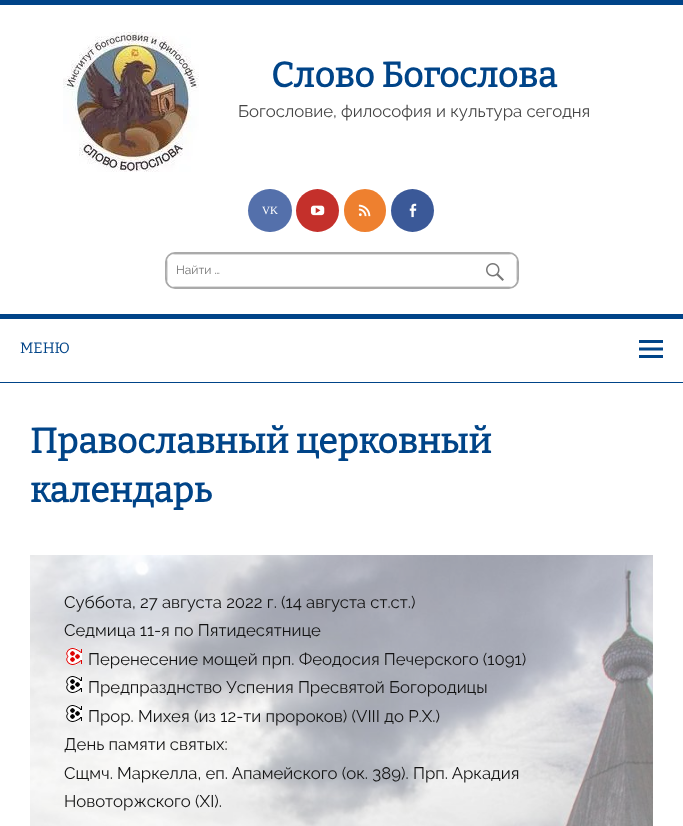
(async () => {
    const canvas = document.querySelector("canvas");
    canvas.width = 683;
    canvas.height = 826;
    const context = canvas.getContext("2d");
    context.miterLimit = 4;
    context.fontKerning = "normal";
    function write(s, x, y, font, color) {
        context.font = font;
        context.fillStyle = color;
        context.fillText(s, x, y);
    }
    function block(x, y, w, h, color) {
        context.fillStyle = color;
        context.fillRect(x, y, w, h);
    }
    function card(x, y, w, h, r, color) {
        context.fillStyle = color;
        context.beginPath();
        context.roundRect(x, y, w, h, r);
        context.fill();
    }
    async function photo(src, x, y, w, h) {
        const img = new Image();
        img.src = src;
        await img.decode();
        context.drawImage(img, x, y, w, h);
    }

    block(0, 0, 683, 826, "rgb(255, 255, 255)");
    block(0, 0, 683, 5, "rgb(0, 68, 136)");
    block(0, 314, 683, 5, "rgb(0, 68, 136)");
    await photo("media/1.png", 63, 32, 136, 140);
    write("Слово Богослова", 271, 87, "bold 35px Bitter", "rgb(0, 68, 136)");
    write("Богословие, философия и культура сегодня", 238, 117, "16.75px Raleway", "rgb(68, 68, 68)");
    card(248, 189, 44, 43, 21.5, "rgb(84, 112, 171)");
    write("VK", 262, 214, "11px Liberation Serif", "rgb(255, 255, 255)");
    context.fillStyle = "rgb(196, 48, 43)";
    context.beginPath();
    context.arc(317.5, 210.5, 21.5, 0, Math.PI * 2);
    context.fill();
    await photo("media/2.png", 310, 205, 15, 11);
    card(344, 189, 42, 43, 21, "rgb(238, 128, 47)");
    await photo("media/3.png", 358, 204, 13, 13);
    context.fillStyle = "rgb(59, 89, 152)";
    context.beginPath();
    context.arc(412.5, 210.5, 21.5, 0, Math.PI * 2);
    context.fill();
    await photo("media/4.png", 409, 203, 8, 15);
    context.beginPath();
    context.roundRect(166, 253, 352, 35, 9);
    context.strokeStyle = "rgb(170, 170, 170)";
    context.lineWidth = 2;
    context.stroke();
    card(167, 254, 350, 33, 8, "rgb(255, 255, 255)");
    context.fillStyle = "rgb(221, 221, 221)";
    context.beginPath();
    context.moveTo(167, 262);
    context.bezierCurveTo(167, 267, 166, 279, 168, 283);
    context.lineTo(168, 258);
    context.closePath();
    context.moveTo(175, 254);
    context.lineTo(171, 255);
    context.lineTo(513, 255);
    context.lineTo(509, 254);
    context.closePath();
    context.moveTo(517, 262);
    context.lineTo(516, 258);
    context.lineTo(516, 283);
    context.bezierCurveTo(518, 279, 517, 267, 517, 262);
    context.closePath();
    context.moveTo(509, 287);
    context.lineTo(513, 286);
    context.lineTo(171, 286);
    context.lineTo(175, 287);
    context.closePath();
    context.fill("evenodd");
    write("Найти …", 176, 274, "12px Raleway", "rgb(117, 117, 117)");
    await photo("media/5.png", 486, 263, 18, 18);
    block(0, 382, 683, 1, "rgb(0, 68, 136)");
    write("МЕНЮ", 20, 353, "100 15px Bitter", "rgb(0, 68, 136)");
    await photo("media/6.png", 639, 340, 24, 18);
    write("Православный церковный", 30, 453, "bold 35px Bitter", "rgb(0, 68, 136)");
    write("календарь", 30, 502, "bold 35px Bitter", "rgb(0, 68, 136)");
    await photo("media/7.png", 30, 555, 623, 271);
    write("Суббота, 27 августа 2022 г.", 64, 608, "16.75px Raleway", "rgb(19, 19, 19)");
    write("(14 августа ст.ст.)", 281, 608, "16.75px Raleway", "rgb(19, 19, 19)");
    write("Седмица 11-я по Пятидесятнице", 64, 636, "16.75px Raleway", "rgb(19, 19, 19)");
    await photo("media/8.png", 66, 648, 16, 17);
    write("Перенесение мощей прп. Феодосия Печерского (1091)", 88, 665, "16.75px Raleway", "rgb(19, 19, 19)");
    await photo("media/9.png", 66, 676, 16, 17);
    write("Предпразднство Успения Пресвятой Богородицы", 88, 693, "16.75px Raleway", "rgb(19, 19, 19)");
    await photo("media/10.png", 66, 705, 16, 17);
    write("Прор. Михея (из 12-ти пророков) (VIII до Р.Х.)", 88, 722, "16.75px Raleway", "rgb(19, 19, 19)");
    write("День памяти святых:", 64, 750, "16.75px Raleway", "rgb(19, 19, 19)");
    write("Сщмч. Маркелла, еп. Апамейского (ок. 389). Прп. Аркадия", 64, 779, "16.75px Raleway", "rgb(19, 19, 19)");
    write("Новоторжского (XI).", 64, 807, "16.75px Raleway", "rgb(19, 19, 19)");
})();
